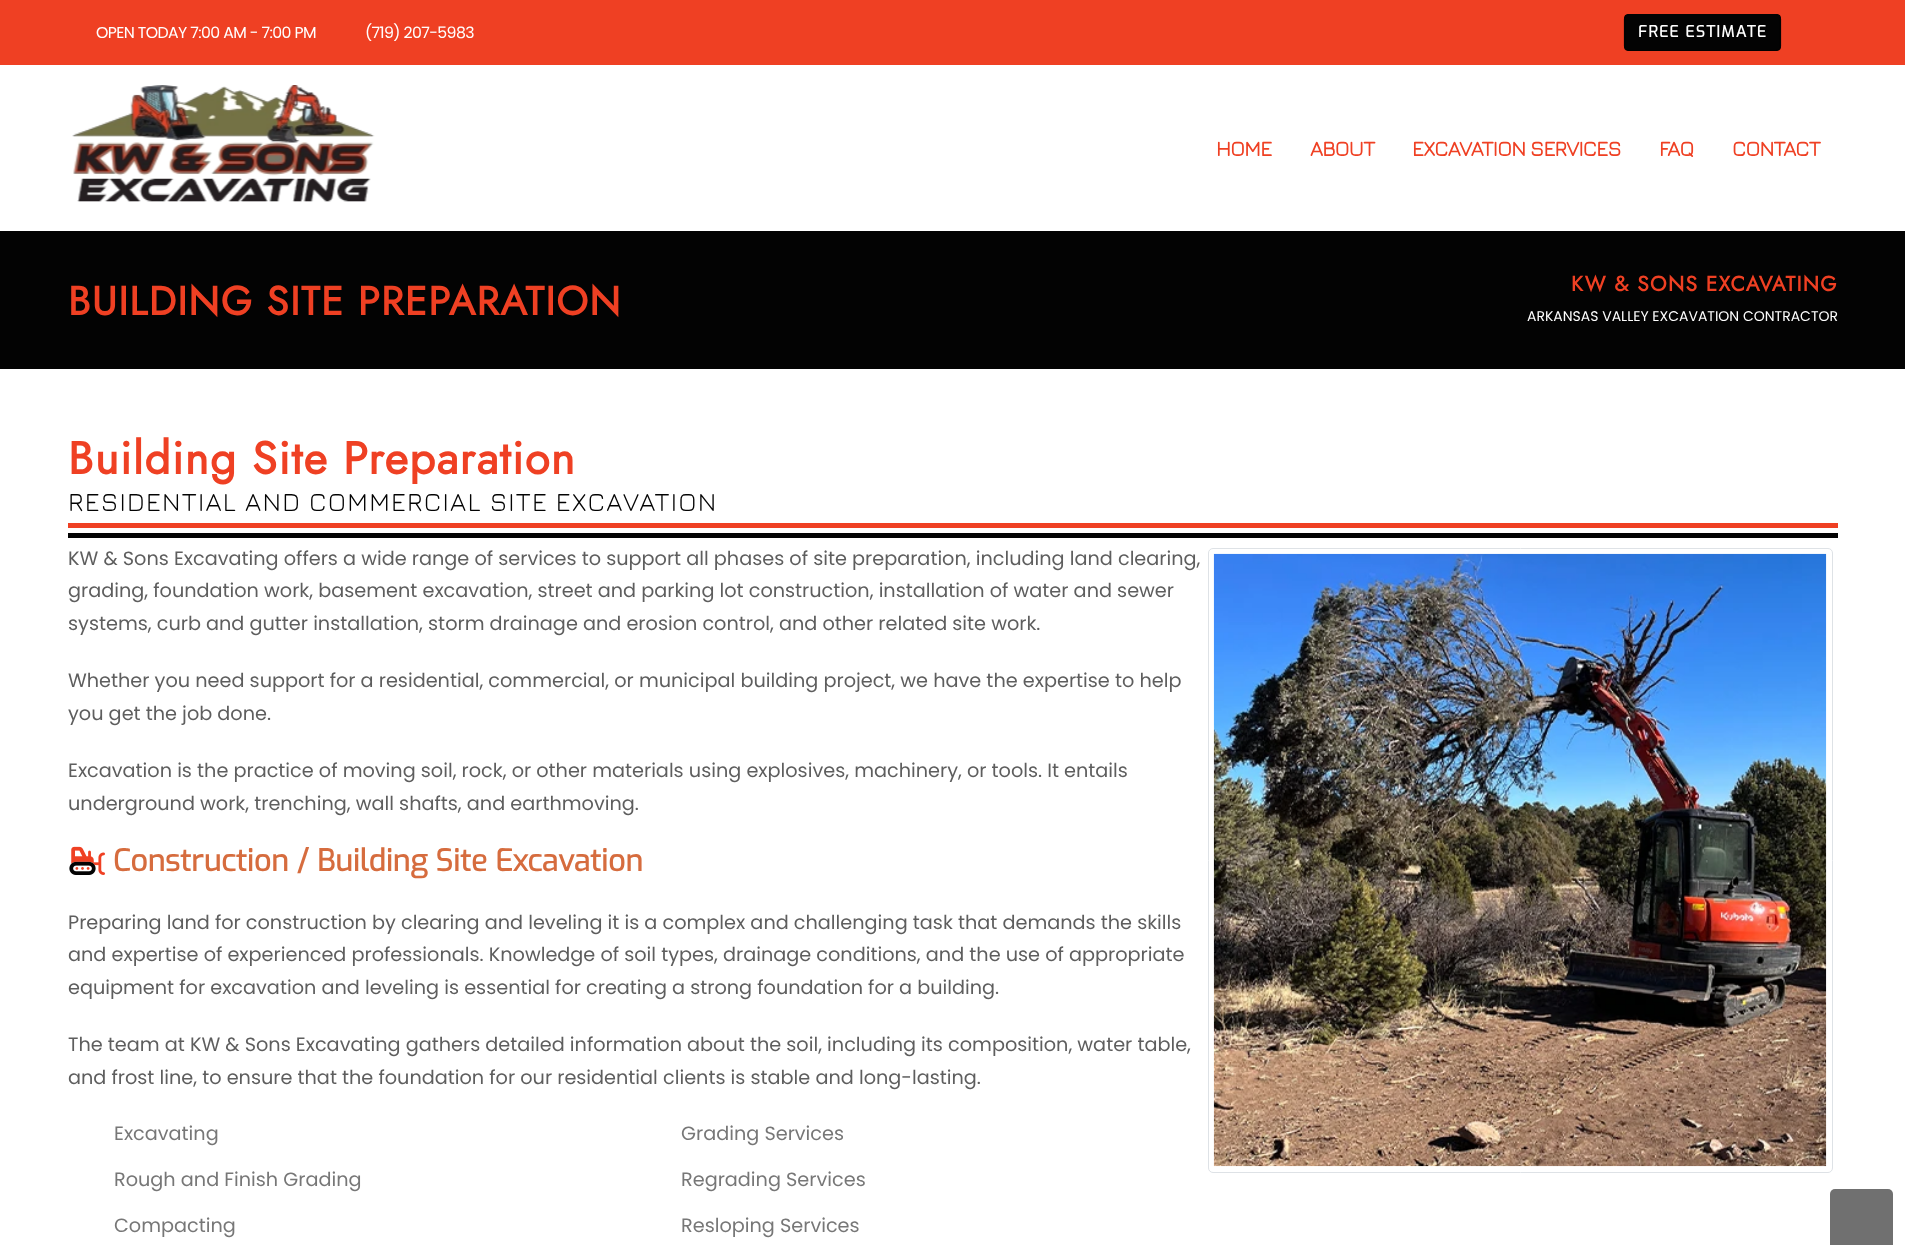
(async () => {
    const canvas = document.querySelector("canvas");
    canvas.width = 1905;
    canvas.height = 1245;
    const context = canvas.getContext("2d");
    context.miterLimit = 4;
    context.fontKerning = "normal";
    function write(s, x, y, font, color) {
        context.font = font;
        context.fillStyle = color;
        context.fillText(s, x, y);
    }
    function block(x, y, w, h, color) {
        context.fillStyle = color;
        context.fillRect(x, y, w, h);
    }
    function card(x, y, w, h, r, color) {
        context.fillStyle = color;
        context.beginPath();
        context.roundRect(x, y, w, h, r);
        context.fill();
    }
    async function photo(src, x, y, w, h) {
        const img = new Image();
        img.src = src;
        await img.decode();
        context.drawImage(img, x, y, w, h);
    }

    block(0, 0, 1905, 1245, "rgb(255, 255, 255)");
    block(0, 0, 1905, 65, "rgb(239, 64, 35)");
    context.letterSpacing = "-0.6px";
    write("OPEN TODAY 7:00 AM - 7:00 PM", 96, 38, "15.75px Poppins", "rgb(255, 255, 255)");
    write("(719) 207-5983", 365, 38, "15.75px Poppins", "rgb(255, 255, 255)");
    card(1624, 14, 157, 37, 5, "rgb(3, 3, 3)");
    context.beginPath();
    context.moveTo(1779.5, 49.5);
    context.bezierCurveTo(1778.5, 50, 1777.5, 50.5, 1776, 50.5);
    context.lineTo(1629, 50.5);
    context.bezierCurveTo(1627.5, 50.5, 1626.5, 50, 1625.5, 49.5);
    context.strokeStyle = "rgb(0, 0, 0)";
    context.lineWidth = 1.2;
    context.stroke();
    context.beginPath();
    context.moveTo(1625.5, 49.5);
    context.bezierCurveTo(1625, 48.5, 1624.5, 47.5, 1624.5, 46);
    context.lineTo(1624.5, 19);
    context.bezierCurveTo(1624.5, 17.5, 1625, 16.5, 1625.5, 15.5);
    context.bezierCurveTo(1626.5, 15, 1627.5, 14.5, 1629, 14.5);
    context.lineTo(1776, 14.5);
    context.bezierCurveTo(1777.5, 14.5, 1778.5, 15, 1779.5, 15.5);
    context.bezierCurveTo(1780, 16.5, 1780.5, 17.5, 1780.5, 19);
    context.lineTo(1780.5, 46);
    context.bezierCurveTo(1780.5, 47.5, 1780, 48.5, 1779.5, 49.5);
    context.strokeStyle = "rgb(3, 3, 3)";
    context.stroke();
    context.letterSpacing = "1.25px";
    write("FREE ESTIMATE", 1638, 37, "bold 15.75px Exo", "rgb(255, 255, 255)");
    await photo("media/1.png", 72, 85, 303, 117);
    context.letterSpacing = "-0.6px";
    write("HOME", 1216, 156, "bold 21px Jura", "rgb(239, 64, 35)");
    write("ABOUT", 1310, 156, "bold 21px Jura", "rgb(239, 64, 35)");
    write("EXCAVATION SERVICES", 1412, 156, "bold 21px Jura", "rgb(239, 64, 35)");
    write("FAQ", 1659, 156, "bold 21px Jura", "rgb(239, 64, 35)");
    write("CONTACT", 1732, 156, "bold 21px Jura", "rgb(239, 64, 35)");
    block(0, 231, 1905, 138, "rgb(3, 3, 3)");
    context.letterSpacing = "1.25px";
    write("BUILDING SITE PREPARATION", 68, 315, "bold 40.25px Jost", "rgb(239, 64, 35)");
    write("KW & SONS EXCAVATING", 1571, 291, "bold 21px Jost", "rgb(239, 64, 35)");
    context.letterSpacing = "0px";
    write("ARKANSAS VALLEY EXCAVATION CONTRACTOR", 1527, 321, "14px Poppins", "rgb(255, 255, 255)");
    context.letterSpacing = "1.25px";
    write("Building Site Preparation", 68, 474, "bold 45.5px Jost", "rgb(239, 64, 35)");
    write("RESIDENTIAL AND COMMERCIAL SITE EXCAVATION", 68, 511, "300 26.25px Jura", "rgb(3, 3, 3)");
    block(68, 523, 1770, 5, "rgb(239, 64, 35)");
    block(68, 533, 1770, 5, "rgb(3, 3, 3)");
    context.letterSpacing = "0px";
    write("KW & Sons Excavating offers a wide range of services to support all phases of site preparation, including land clearing,", 68, 565, "19.25px Poppins", "rgb(94, 94, 94)");
    context.beginPath();
    context.roundRect(1208.5, 548.5, 624, 624, 4.5);
    context.strokeStyle = "rgb(222, 226, 230)";
    context.lineWidth = 1;
    context.stroke();
    await photo("media/2.png", 1213, 553, 614, 614);
    write("grading, foundation work, basement excavation, street and parking lot construction, installation of water and sewer", 68, 597, "19.25px Poppins", "rgb(94, 94, 94)");
    write("systems, curb and gutter installation, storm drainage and erosion control, and other related site work.", 68, 630, "19.25px Poppins", "rgb(94, 94, 94)");
    write("Whether you need support for a residential, commercial, or municipal building project, we have the expertise to help", 68, 687, "19.25px Poppins", "rgb(94, 94, 94)");
    write("you get the job done.", 68, 720, "19.25px Poppins", "rgb(94, 94, 94)");
    write("Excavation is the practice of moving soil, rock, or other materials using explosives, machinery, or tools. It entails", 68, 777, "19.25px Poppins", "rgb(94, 94, 94)");
    write("underground work, trenching, wall shafts, and earthmoving.", 68, 810, "19.25px Poppins", "rgb(94, 94, 94)");
    await photo("media/3.png", 71, 846, 34, 29);
    write("Construction / Building Site Excavation", 113, 871, "bold 30px Exo", "rgb(214, 108, 62)");
    await photo("media/4.png", 69, 861, 27, 14);
    write("Preparing land for construction by clearing and leveling it is a complex and challenging task that demands the skills", 68, 929, "19.25px Poppins", "rgb(94, 94, 94)");
    write("and expertise of experienced professionals. Knowledge of soil types, drainage conditions, and the use of appropriate", 68, 961, "19.25px Poppins", "rgb(94, 94, 94)");
    write("equipment for excavation and leveling is essential for creating a strong foundation for a building.", 68, 994, "19.25px Poppins", "rgb(94, 94, 94)");
    write("The team at KW & Sons Excavating gathers detailed information about the soil, including its composition, water table,", 68, 1051, "19.25px Poppins", "rgb(94, 94, 94)");
    write("and frost line, to ensure that the foundation for our residential clients is stable and long-lasting.", 68, 1084, "19.25px Poppins", "rgb(94, 94, 94)");
    write("Excavating", 114, 1140, "19.25px Poppins", "rgb(119, 119, 119)");
    write("Rough and Finish Grading", 114, 1186, "19.25px Poppins", "rgb(119, 119, 119)");
    write("Compacting", 114, 1232, "19.25px Poppins", "rgb(119, 119, 119)");
    write("Grading Services", 681, 1140, "19.25px Poppins", "rgb(119, 119, 119)");
    write("Regrading Services", 681, 1186, "19.25px Poppins", "rgb(119, 119, 119)");
    write("Resloping Services", 681, 1232, "19.25px Poppins", "rgb(119, 119, 119)");
    context.fillStyle = "rgb(112, 112, 112)";
    context.beginPath();
    context.roundRect(1830, 1189, 63, 56, [5, 5, 0, 0]);
    context.fill();
})();
